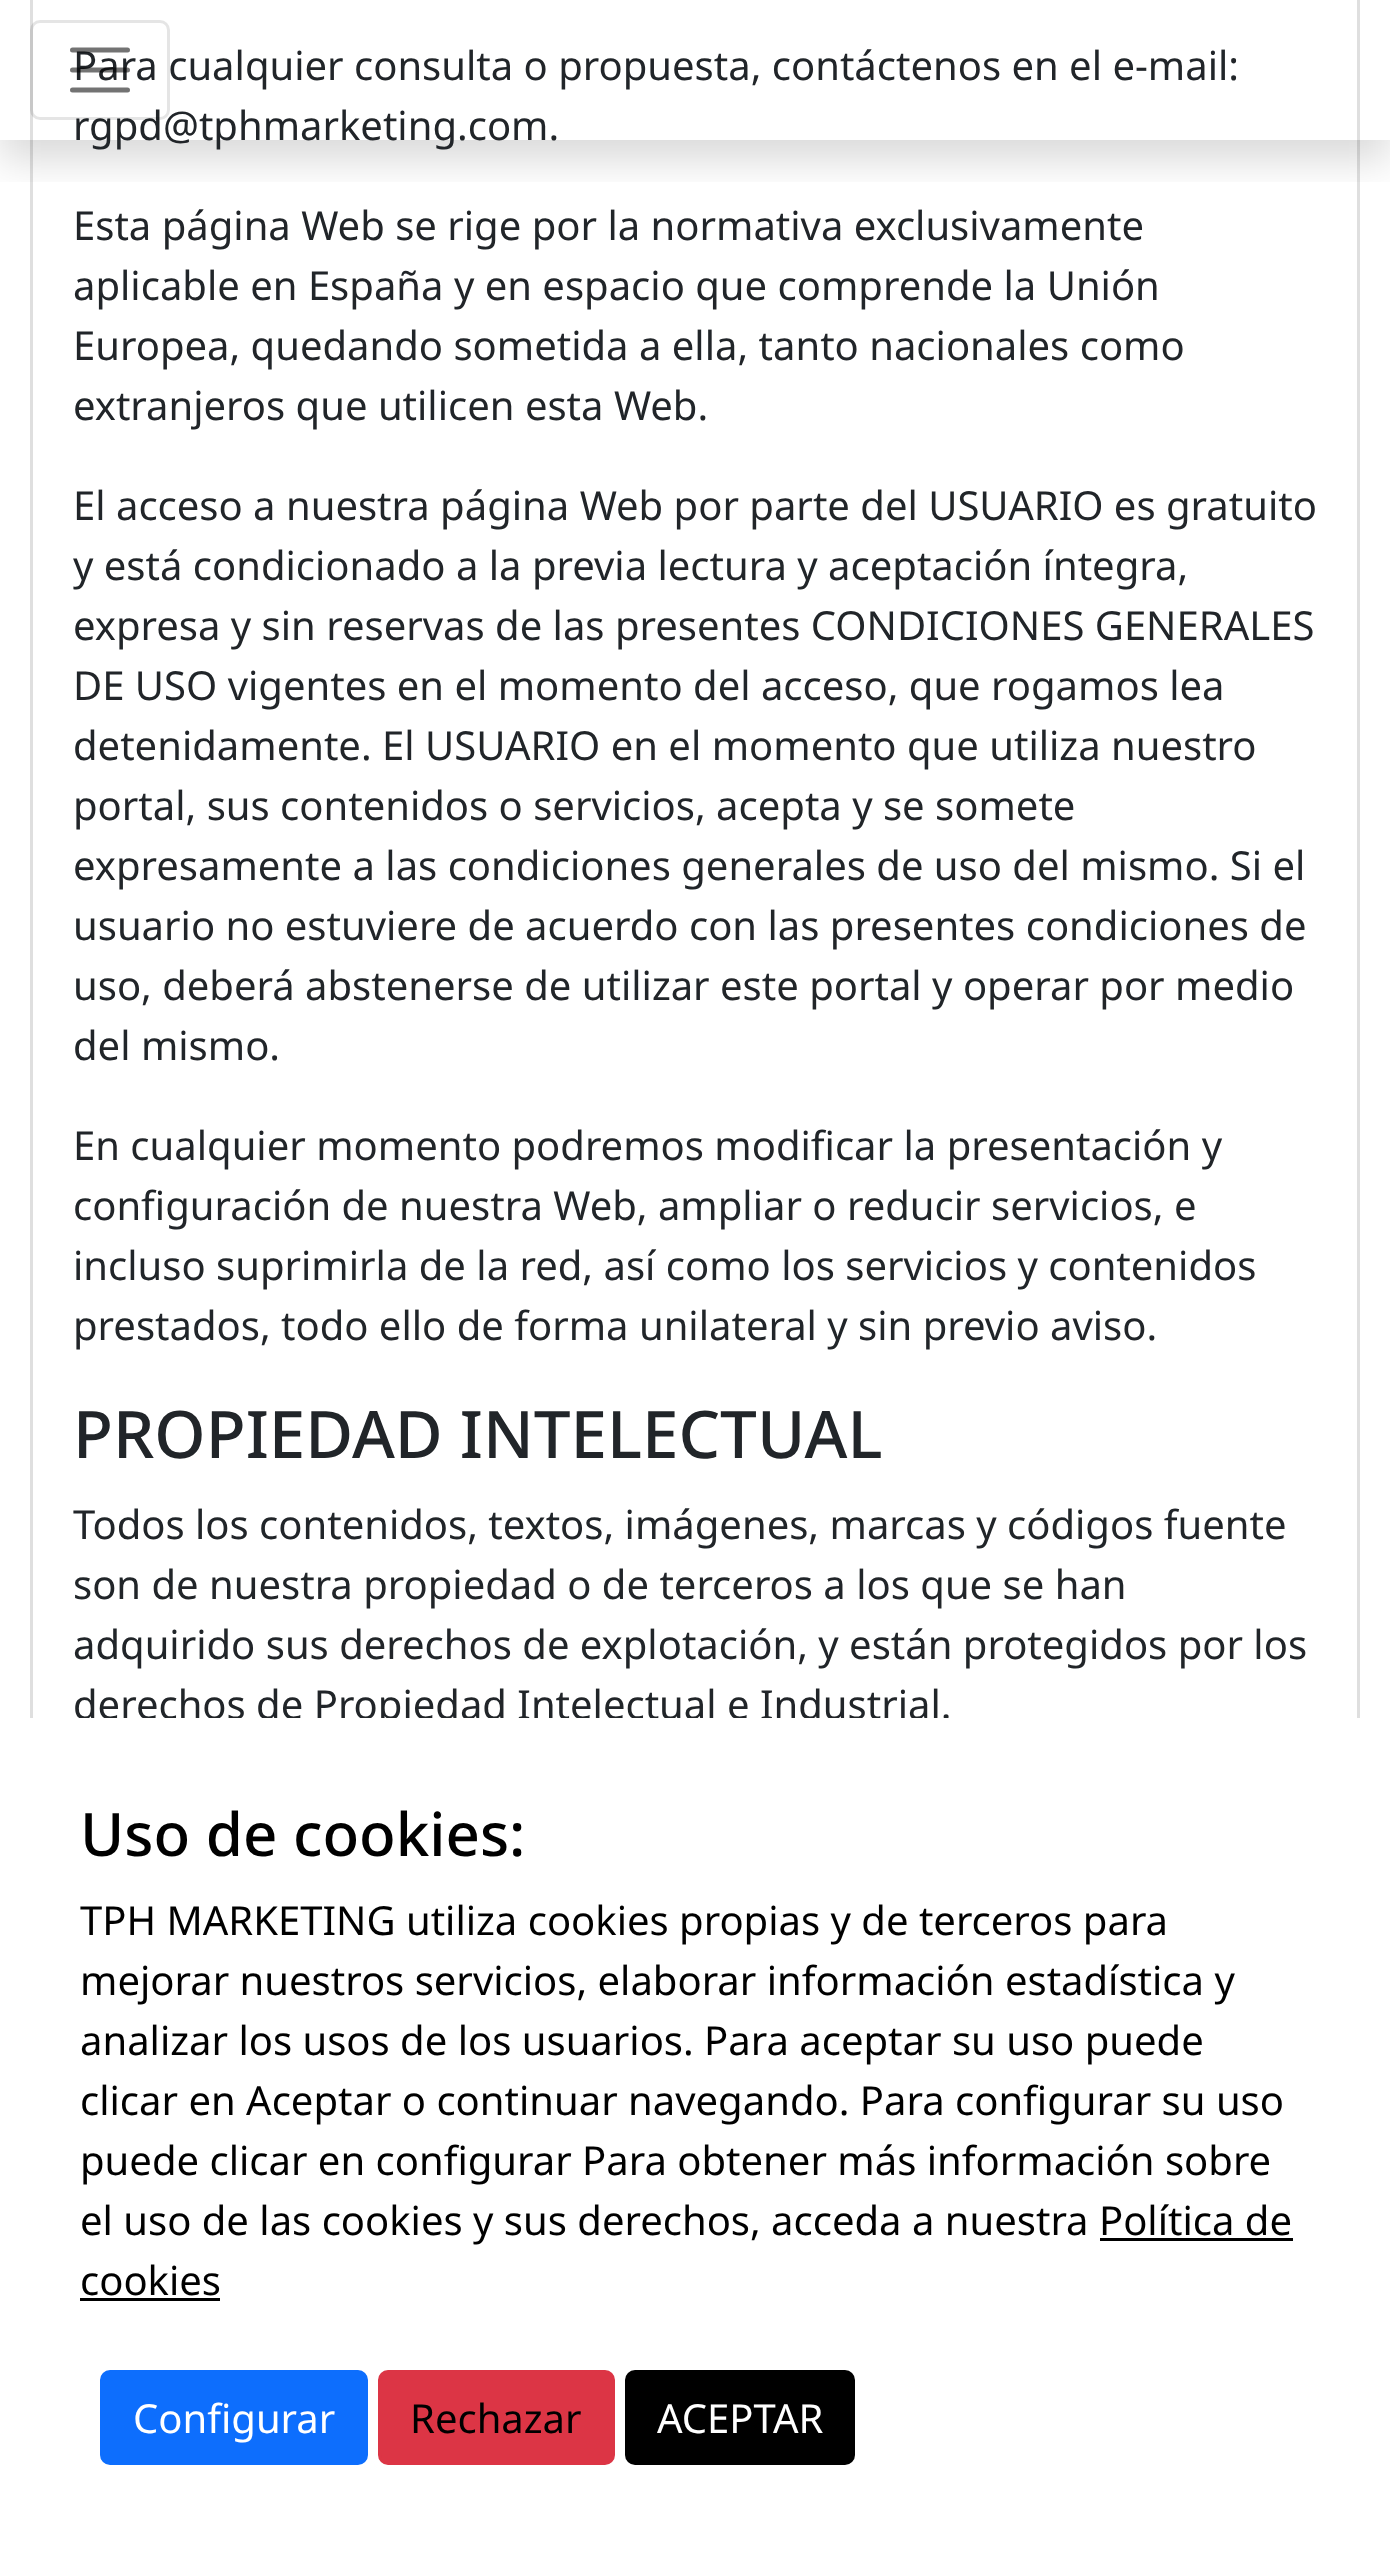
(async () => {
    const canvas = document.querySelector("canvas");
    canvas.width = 1390;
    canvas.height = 2565;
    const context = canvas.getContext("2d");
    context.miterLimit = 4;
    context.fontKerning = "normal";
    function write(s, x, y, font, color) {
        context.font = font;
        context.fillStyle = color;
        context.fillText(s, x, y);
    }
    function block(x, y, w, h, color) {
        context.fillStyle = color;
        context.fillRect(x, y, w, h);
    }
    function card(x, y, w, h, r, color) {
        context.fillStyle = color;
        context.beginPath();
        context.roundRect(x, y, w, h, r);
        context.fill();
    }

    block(0, 0, 1390, 2565, "rgb(255, 255, 255)");
    context.strokeStyle = "rgb(223, 223, 223)";
    context.lineWidth = 3;
    context.strokeRect(31.5, -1.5, 1327, 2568);
    context.save();
    context.beginPath();
    context.rect(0, 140, 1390, 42);
    context.clip();
    context.fillStyle = "rgba(0, 0, 0, 0.15)";
    context.filter = "blur(20px)";
    context.beginPath();
    context.rect(0, 20, 1390, 140);
    context.fill();
    context.filter = "none";
    context.restore();
    write("Para cualquier consulta o propuesta, contáctenos en el e-mail:", 73, 80, "40px Noto Sans", "rgb(33, 37, 41)");
    write("rgpd@tphmarketing.com.", 73, 140, "40px Noto Sans", "rgb(33, 37, 41)");
    context.beginPath();
    context.roundRect(31.5, 21.5, 137, 97, 8.5);
    context.strokeStyle = "rgba(0, 0, 0, 0.1)";
    context.stroke();
    context.beginPath();
    context.moveTo(72.5, 50);
    context.lineTo(127.5, 50);
    context.moveTo(72.5, 70);
    context.lineTo(127.5, 70);
    context.moveTo(72.5, 90);
    context.lineTo(127.5, 90);
    context.strokeStyle = "rgba(0, 0, 0, 0.55)";
    context.lineWidth = 5;
    context.lineCap = "round";
    context.stroke();
    write("Esta página Web se rige por la normativa exclusivamente", 73, 240, "40px Noto Sans", "rgb(33, 37, 41)");
    write("aplicable en España y en espacio que comprende la Unión", 73, 300, "40px Noto Sans", "rgb(33, 37, 41)");
    write("Europea, quedando sometida a ella, tanto nacionales como", 73, 360, "40px Noto Sans", "rgb(33, 37, 41)");
    write("extranjeros que utilicen esta Web.", 73, 420, "40px Noto Sans", "rgb(33, 37, 41)");
    write("El acceso a nuestra página Web por parte del USUARIO es gratuito", 73, 520, "40px Noto Sans", "rgb(33, 37, 41)");
    write("y está condicionado a la previa lectura y aceptación íntegra,", 73, 580, "40px Noto Sans", "rgb(33, 37, 41)");
    write("expresa y sin reservas de las presentes CONDICIONES GENERALES", 73, 640, "40px Noto Sans", "rgb(33, 37, 41)");
    write("DE USO vigentes en el momento del acceso, que rogamos lea", 73, 700, "40px Noto Sans", "rgb(33, 37, 41)");
    write("detenidamente. El USUARIO en el momento que utiliza nuestro", 73, 760, "40px Noto Sans", "rgb(33, 37, 41)");
    write("portal, sus contenidos o servicios, acepta y se somete", 73, 820, "40px Noto Sans", "rgb(33, 37, 41)");
    write("expresamente a las condiciones generales de uso del mismo. Si el", 73, 880, "40px Noto Sans", "rgb(33, 37, 41)");
    write("usuario no estuviere de acuerdo con las presentes condiciones de", 73, 940, "40px Noto Sans", "rgb(33, 37, 41)");
    write("uso, deberá abstenerse de utilizar este portal y operar por medio", 73, 1000, "40px Noto Sans", "rgb(33, 37, 41)");
    write("del mismo.", 73, 1060, "40px Noto Sans", "rgb(33, 37, 41)");
    write("En cualquier momento podremos modificar la presentación y", 73, 1160, "40px Noto Sans", "rgb(33, 37, 41)");
    write("configuración de nuestra Web, ampliar o reducir servicios, e", 73, 1220, "40px Noto Sans", "rgb(33, 37, 41)");
    write("incluso suprimirla de la red, así como los servicios y contenidos", 73, 1280, "40px Noto Sans", "rgb(33, 37, 41)");
    write("prestados, todo ello de forma unilateral y sin previo aviso.", 73, 1340, "40px Noto Sans", "rgb(33, 37, 41)");
    write("PROPIEDAD INTELECTUAL", 73, 1458, "500 65.5px Noto Sans", "rgb(33, 37, 41)");
    write("Todos los contenidos, textos, imágenes, marcas y códigos fuente", 73, 1539, "40px Noto Sans", "rgb(33, 37, 41)");
    write("son de nuestra propiedad o de terceros a los que se han", 73, 1599, "40px Noto Sans", "rgb(33, 37, 41)");
    write("adquirido sus derechos de explotación, y están protegidos por los", 73, 1659, "40px Noto Sans", "rgb(33, 37, 41)");
    write("derechos de Propiedad Intelectual e Industrial.", 73, 1719, "40px Noto Sans", "rgb(33, 37, 41)");
    block(30, 1718, 1330, 847, "rgb(255, 255, 255)");
    write("Uso de cookies:", 80, 1856, "500 60px Noto Sans", "rgb(0, 0, 0)");
    write("TPH MARKETING utiliza cookies propias y de terceros para", 80, 1935, "40px Noto Sans", "rgb(0, 0, 0)");
    write("mejorar nuestros servicios, elaborar información estadística y", 80, 1995, "40px Noto Sans", "rgb(0, 0, 0)");
    write("analizar los usos de los usuarios. Para aceptar su uso puede", 80, 2055, "40px Noto Sans", "rgb(0, 0, 0)");
    write("clicar en Aceptar o continuar navegando. Para configurar su uso", 80, 2115, "40px Noto Sans", "rgb(0, 0, 0)");
    write("puede clicar en configurar Para obtener más información sobre", 80, 2175, "40px Noto Sans", "rgb(0, 0, 0)");
    write("el uso de las cookies y sus derechos, acceda a nuestra Política de", 80, 2235, "40px Noto Sans", "rgb(0, 0, 0)");
    write("cookies", 80, 2295, "40px Noto Sans", "rgb(0, 0, 0)");
    block(1100, 2238, 193, 3, "rgb(0, 0, 0)");
    block(80, 2298, 140, 3, "rgb(0, 0, 0)");
    context.fillStyle = "rgb(13, 110, 253)";
    context.beginPath();
    context.roundRect(101.5, 2371.5, 265, 92, 8.5);
    context.fill();
    context.strokeStyle = "rgb(13, 110, 253)";
    context.lineWidth = 3;
    context.stroke();
    write("Configurar", 133, 2433, "40px Noto Sans", "rgb(255, 255, 255)");
    context.fillStyle = "rgb(220, 53, 69)";
    context.beginPath();
    context.roundRect(379.5, 2371.5, 234, 92, 8.5);
    context.fill();
    context.strokeStyle = "rgb(220, 53, 69)";
    context.stroke();
    write("Rechazar", 410, 2433, "40px Noto Sans", "rgb(0, 0, 0)");
    card(625, 2370, 230, 95, 10, "rgb(0, 0, 0)");
    write("ACEPTAR", 657, 2433, "40px Noto Sans", "rgb(255, 255, 255)");
})();
